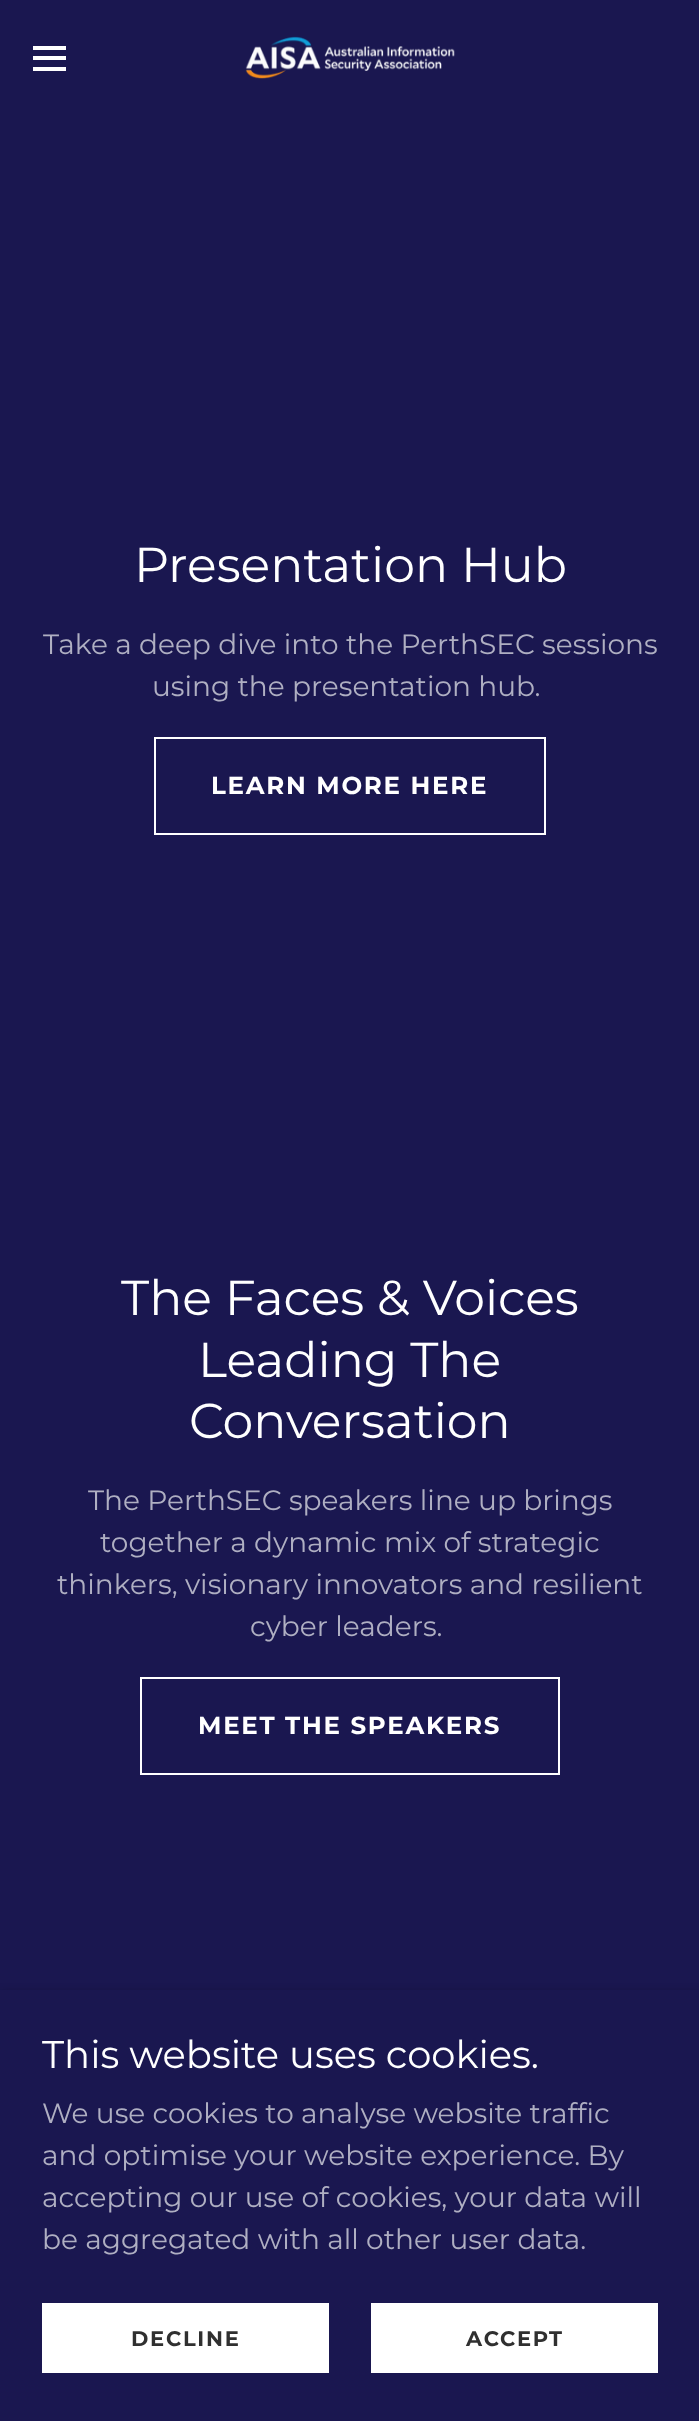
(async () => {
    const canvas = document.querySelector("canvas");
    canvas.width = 699;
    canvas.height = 2421;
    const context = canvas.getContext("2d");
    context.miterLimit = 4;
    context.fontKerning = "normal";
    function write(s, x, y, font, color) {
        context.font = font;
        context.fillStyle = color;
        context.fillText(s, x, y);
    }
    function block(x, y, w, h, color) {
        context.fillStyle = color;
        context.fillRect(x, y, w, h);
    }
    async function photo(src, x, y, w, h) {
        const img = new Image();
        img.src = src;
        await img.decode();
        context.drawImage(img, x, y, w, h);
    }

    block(0, 0, 699, 2421, "rgb(26, 23, 80)");
    block(33, 46, 33, 4, "rgb(255, 255, 255)");
    block(33, 56, 33, 4, "rgb(255, 255, 255)");
    block(33, 67, 33, 4, "rgb(255, 255, 255)");
    await photo("media/1.png", 245, 36, 210, 43);
    write("Presentation Hub", 134, 582, "49px Montserrat", "rgb(255, 255, 255)");
    write("Take a deep dive into the PerthSEC sessions", 43, 654, "28px Montserrat", "rgb(175, 175, 194)");
    write("using the presentation hub.", 152, 696, "28px Montserrat", "rgb(175, 175, 194)");
    context.strokeStyle = "rgb(255, 255, 255)";
    context.lineWidth = 2;
    context.strokeRect(155, 738, 390, 96);
    context.letterSpacing = "1.75px";
    write("LEARN MORE HERE", 211, 794, "bold 24.5px Montserrat", "rgb(255, 255, 255)");
    context.letterSpacing = "0px";
    write("The Faces & Voices", 121, 1315, "49px Montserrat", "rgb(255, 255, 255)");
    write("Leading The", 198, 1377, "49px Montserrat", "rgb(255, 255, 255)");
    write("Conversation", 189, 1438, "49px Montserrat", "rgb(255, 255, 255)");
    write("The PerthSEC speakers line up brings", 88, 1510, "28px Montserrat", "rgb(175, 175, 194)");
    write("together a dynamic mix of strategic", 100, 1552, "28px Montserrat", "rgb(175, 175, 194)");
    write("thinkers, visionary innovators and resilient", 57, 1594, "28px Montserrat", "rgb(175, 175, 194)");
    write("cyber leaders.", 250, 1636, "28px Montserrat", "rgb(175, 175, 194)");
    context.strokeRect(141, 1678, 418, 96);
    context.letterSpacing = "1.75px";
    write("MEET THE SPEAKERS", 198, 1734, "bold 24.5px Montserrat", "rgb(255, 255, 255)");
    context.fillStyle = "rgba(0, 0, 0, 0.3)";
    context.filter = "blur(5px)";
    context.beginPath();
    context.rect(0, 1993, 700, 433);
    context.fill();
    context.filter = "none";
    block(0, 1990, 699, 431, "rgb(26, 23, 80)");
    context.letterSpacing = "0px";
    write("This website uses cookies.", 42, 2068, "38.5px Montserrat", "rgb(255, 255, 255)");
    write("We use cookies to analyse website traffic", 42, 2123, "28px Montserrat", "rgb(175, 175, 194)");
    write("and optimise your website experience. By", 42, 2165, "28px Montserrat", "rgb(175, 175, 194)");
    write("accepting our use of cookies, your data will", 42, 2207, "28px Montserrat", "rgb(175, 175, 194)");
    write("be aggregated with all other user data.", 42, 2249, "28px Montserrat", "rgb(175, 175, 194)");
    block(42, 2303, 287, 70, "rgb(255, 255, 255)");
    context.letterSpacing = "1.75px";
    write("DECLINE", 131, 2346, "bold 21px Montserrat", "rgb(48, 48, 48)");
    block(371, 2303, 287, 70, "rgb(255, 255, 255)");
    write("ACCEPT", 466, 2346, "bold 21px Montserrat", "rgb(48, 48, 48)");
})();
